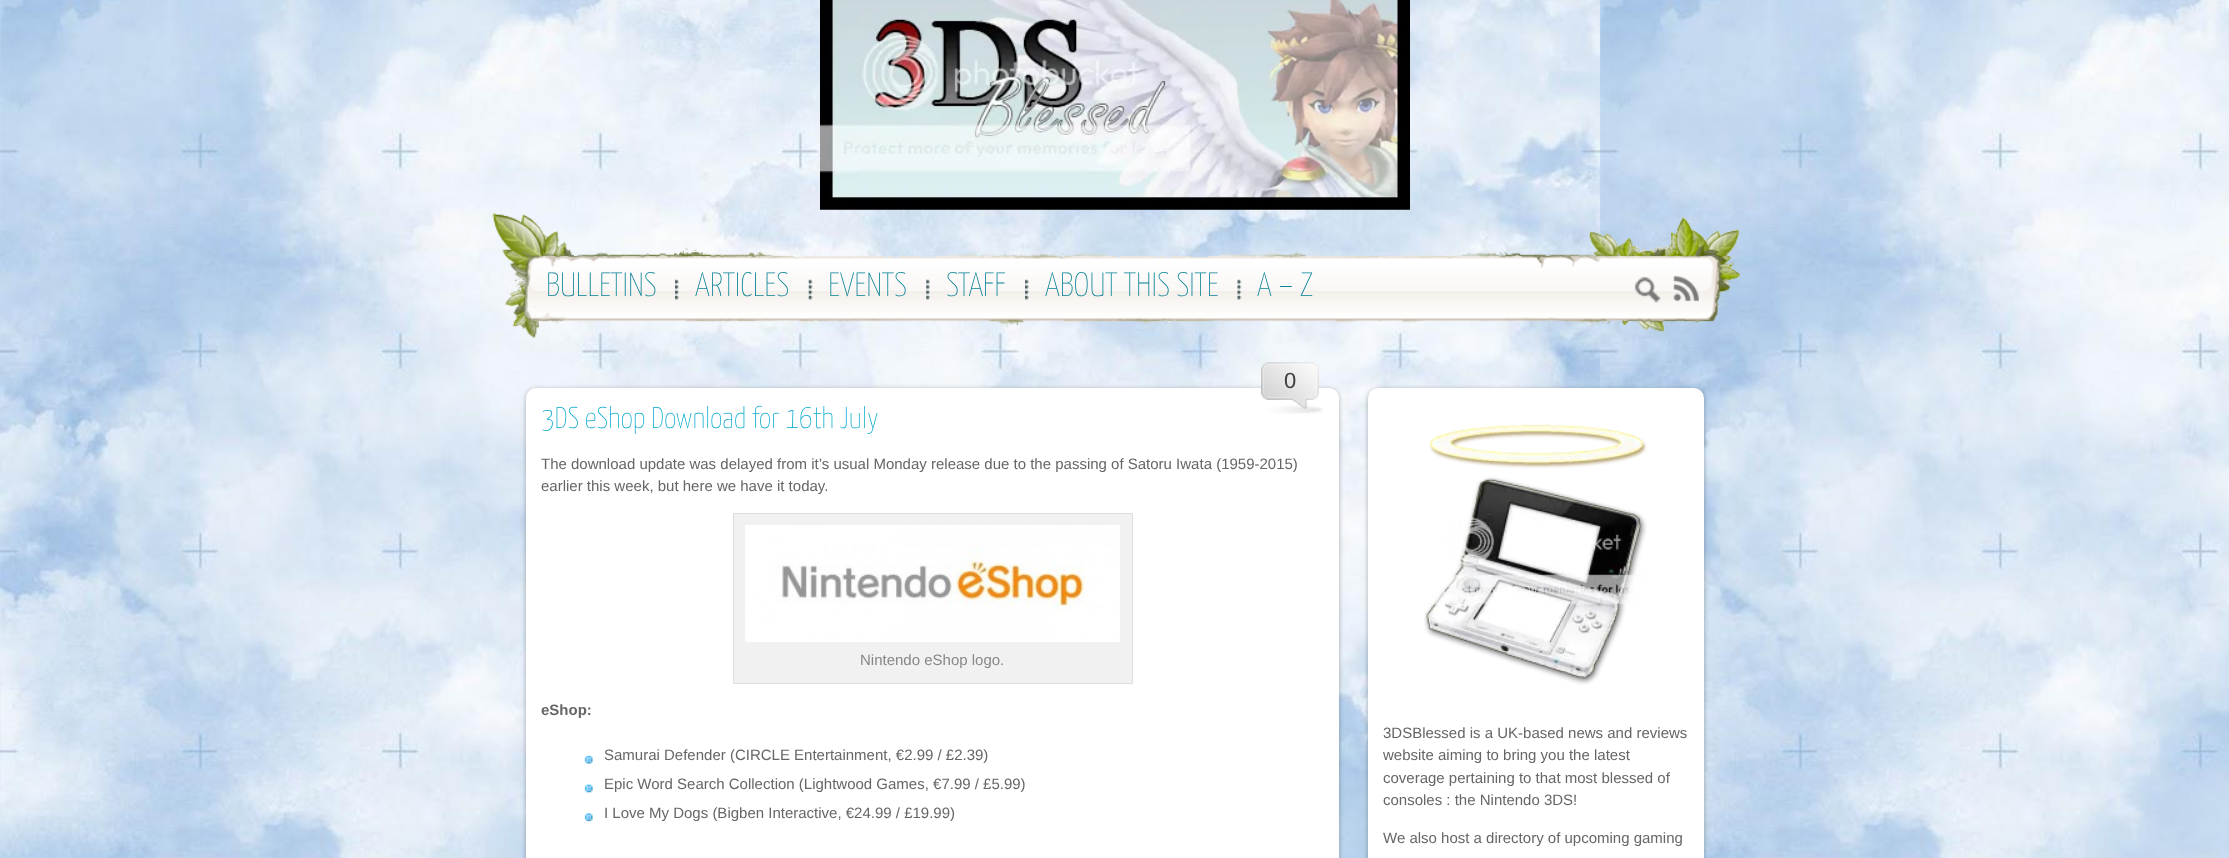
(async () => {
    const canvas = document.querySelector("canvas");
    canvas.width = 2229;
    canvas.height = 858;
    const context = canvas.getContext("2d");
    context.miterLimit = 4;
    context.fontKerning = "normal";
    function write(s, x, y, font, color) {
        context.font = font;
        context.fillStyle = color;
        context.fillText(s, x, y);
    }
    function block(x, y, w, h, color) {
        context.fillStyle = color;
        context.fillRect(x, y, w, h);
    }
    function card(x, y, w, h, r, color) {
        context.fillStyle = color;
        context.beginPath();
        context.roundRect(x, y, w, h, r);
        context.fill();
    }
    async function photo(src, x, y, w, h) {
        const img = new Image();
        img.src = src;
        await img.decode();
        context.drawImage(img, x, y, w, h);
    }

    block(0, 0, 2229, 858, "rgb(255, 255, 255)");
    await photo("media/1.png", 0, 0, 2229, 858);
    await photo("media/2.png", 820, 0, 590, 210);
    await photo("media/3.png", 492, 213, 1248, 126);
    await photo("media/4.png", 675, 279, 4, 21);
    write("BULLETINS", 546, 296, "200 33.75px Yanone Kaffeesatz", "rgb(7, 129, 150)");
    await photo("media/5.png", 808, 279, 5, 21);
    write("ARTICLES", 695, 296, "200 33.75px Yanone Kaffeesatz", "rgb(7, 129, 150)");
    await photo("media/6.png", 926, 279, 4, 21);
    write("EVENTS", 828, 296, "200 33.75px Yanone Kaffeesatz", "rgb(7, 129, 150)");
    await photo("media/4.png", 1025, 279, 4, 21);
    write("STAFF", 946, 296, "200 33.75px Yanone Kaffeesatz", "rgb(7, 129, 150)");
    await photo("media/7.png", 1237, 279, 5, 21);
    write("ABOUT THIS SITE", 1045, 296, "200 33.75px Yanone Kaffeesatz", "rgb(7, 129, 150)");
    write("A – Z", 1257, 296, "200 33.75px Yanone Kaffeesatz", "rgb(7, 129, 150)");
    await photo("media/8.png", 1634, 277, 27, 26);
    await photo("media/9.png", 1673, 275, 26, 27);
    context.fillStyle = "rgba(0, 0, 0, 0.3)";
    context.filter = "blur(2.5px)";
    context.beginPath();
    context.roundRect(526, 389, 813, 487, 10);
    context.fill();
    context.filter = "none";
    card(526, 388, 813, 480, 10, "rgb(255, 255, 255)");
    await photo("media/10.png", 1261, 362, 62, 52);
    write("0", 1284, 388, "22px Liberation Sans", "rgb(63, 63, 63)");
    write("3DS eShop Download for 16th July", 541, 428, "200 30px Yanone Kaffeesatz", "rgb(0, 168, 204)");
    write("The download update was delayed from it’s usual Monday release due to the passing of Satoru Iwata (1959-2015)", 541, 469, "15px Liberation Sans", "rgb(102, 102, 102)");
    write("earlier this week, but here we have it today.", 541, 491, "15px Liberation Sans", "rgb(102, 102, 102)");
    context.fillStyle = "rgb(241, 241, 241)";
    context.beginPath();
    context.rect(733.5, 513.5, 399, 170);
    context.fill();
    context.strokeStyle = "rgb(221, 221, 221)";
    context.stroke();
    await photo("media/11.png", 745, 525, 375, 117);
    write("Nintendo eShop logo.", 860, 665, "15px Liberation Sans", "rgb(136, 136, 136)");
    write("eShop:", 541, 715, "bold 15px Liberation Sans", "rgb(102, 102, 102)");
    await photo("media/12.png", 584, 755, 9, 9);
    write("Samurai Defender (CIRCLE Entertainment, €2.99 / £2.39)", 604, 760, "15px Liberation Sans", "rgb(102, 102, 102)");
    await photo("media/13.png", 584, 784, 9, 9);
    write("Epic Word Search Collection (Lightwood Games, €7.99 / £5.99)", 604, 789, "15px Liberation Sans", "rgb(102, 102, 102)");
    await photo("media/14.png", 584, 813, 9, 9);
    write("I Love My Dogs (Bigben Interactive, €24.99 / £19.99)", 604, 818, "15px Liberation Sans", "rgb(102, 102, 102)");
    context.fillStyle = "rgba(0, 0, 0, 0.3)";
    context.filter = "blur(2.5px)";
    context.beginPath();
    context.roundRect(1368, 389, 336, 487, 10);
    context.fill();
    context.filter = "none";
    card(1368, 388, 336, 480, 10, "rgb(255, 255, 255)");
    await photo("media/15.png", 1424, 424, 223, 261);
    write("3DSBlessed is a UK-based news and reviews", 1383, 738, "15px Liberation Sans", "rgb(102, 102, 102)");
    write("website aiming to bring you the latest", 1383, 760, "15px Liberation Sans", "rgb(102, 102, 102)");
    write("coverage pertaining to that most blessed of", 1383, 783, "15px Liberation Sans", "rgb(102, 102, 102)");
    write("consoles : the Nintendo 3DS!", 1383, 805, "15px Liberation Sans", "rgb(102, 102, 102)");
    write("We also host a directory of upcoming gaming", 1383, 843, "15px Liberation Sans", "rgb(102, 102, 102)");
})();
